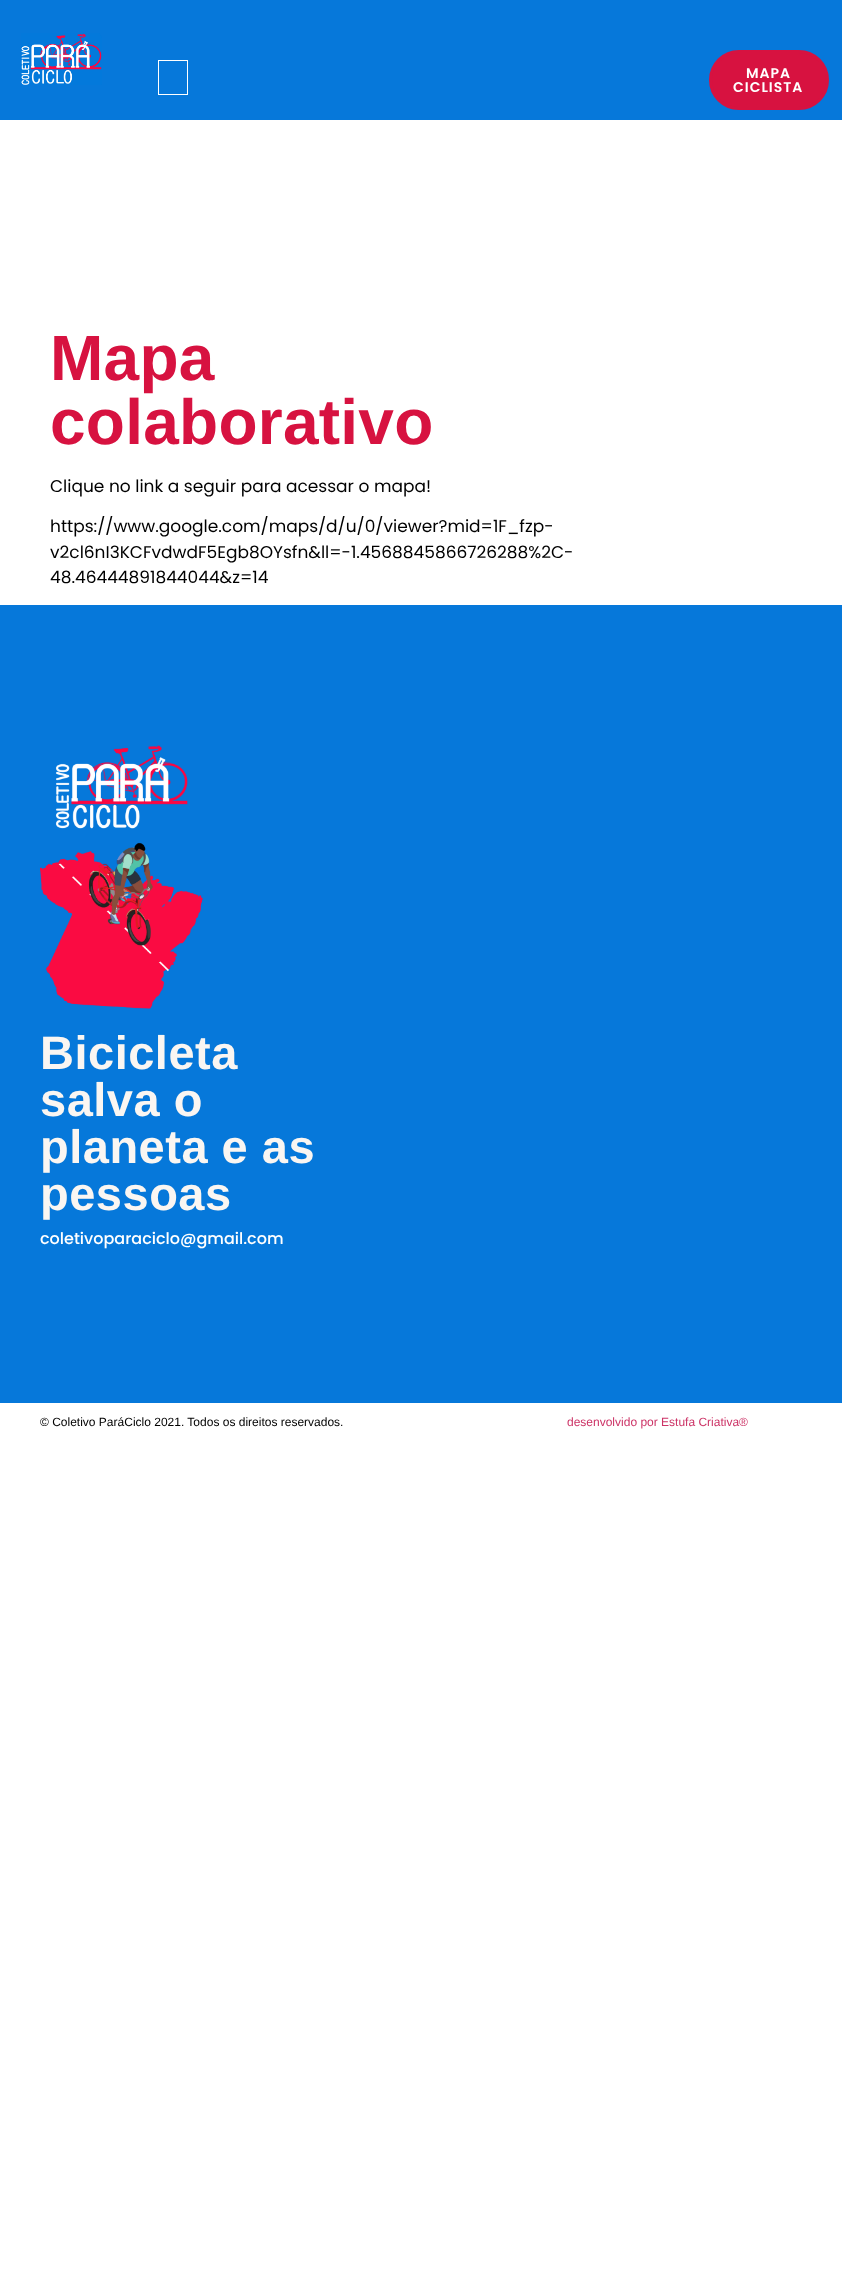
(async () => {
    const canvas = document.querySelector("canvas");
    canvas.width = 842;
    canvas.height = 2270;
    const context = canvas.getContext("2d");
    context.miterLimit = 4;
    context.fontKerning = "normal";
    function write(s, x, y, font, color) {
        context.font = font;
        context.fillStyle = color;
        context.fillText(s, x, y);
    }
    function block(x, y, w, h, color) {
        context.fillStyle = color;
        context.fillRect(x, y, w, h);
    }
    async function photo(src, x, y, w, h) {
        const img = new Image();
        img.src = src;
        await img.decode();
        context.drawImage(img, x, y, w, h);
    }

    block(0, 0, 842, 2270, "rgb(255, 255, 255)");
    block(0, 0, 842, 120, "rgb(6, 120, 218)");
    await photo("media/1.png", 21, 33, 81, 52);
    context.strokeStyle = "rgb(255, 255, 255)";
    context.strokeRect(158.5, 60.5, 29, 34);
    context.fillStyle = "rgb(215, 18, 64)";
    context.beginPath();
    context.roundRect(710.5, 51.5, 117, 57, 28.5);
    context.fill();
    context.strokeStyle = "rgb(215, 18, 64)";
    context.lineWidth = 3;
    context.stroke();
    context.letterSpacing = "1px";
    write("MAPA", 746, 78, "600 14px Poppins", "rgb(255, 255, 255)");
    write("CICLISTA", 733, 92, "600 14px Poppins", "rgb(255, 255, 255)");
    context.letterSpacing = "0.25px";
    write("Mapa", 50, 380, "bold 64px Liberation Sans", "rgb(215, 18, 64)");
    write("colaborativo", 50, 444, "bold 64px Liberation Sans", "rgb(215, 18, 64)");
    context.letterSpacing = "0px";
    write("Clique no link a seguir para acessar o mapa!", 50, 492, "17px Poppins", "rgb(0, 0, 0)");
    write("https://www.google.com/maps/d/u/0/viewer?mid=1F_fzp-", 50, 532, "17px Poppins", "rgb(0, 0, 0)");
    write("v2cl6nI3KCFvdwdF5Egb8OYsfn&ll=-1.4568845866726288%2C-", 50, 558, "17px Poppins", "rgb(0, 0, 0)");
    write("48.46444891844044&z=14", 50, 583, "17px Poppins", "rgb(0, 0, 0)");
    block(0, 605, 842, 798, "rgb(6, 120, 218)");
    await photo("media/2.png", 40, 745, 163, 264);
    context.letterSpacing = "0.5px";
    write("Bicicleta", 40, 1069, "bold 47px Liberation Sans", "rgb(250, 246, 242)");
    write("salva o", 40, 1116, "bold 47px Liberation Sans", "rgb(250, 246, 242)");
    write("planeta e as", 40, 1163, "bold 47px Liberation Sans", "rgb(250, 246, 242)");
    write("pessoas", 40, 1210, "bold 47px Liberation Sans", "rgb(250, 246, 242)");
    context.letterSpacing = "0px";
    write("coletivoparaciclo@gmail.com", 40, 1244, "500 16px Poppins", "rgb(255, 255, 255)");
    write("© Coletivo ParáCiclo 2021. Todos os direitos reservados.", 40, 1426, "12px Liberation Sans", "rgb(0, 0, 0)");
    write("desenvolvido por Estufa Criativa®", 567, 1426, "12px Liberation Sans", "rgb(204, 51, 102)");
})();
